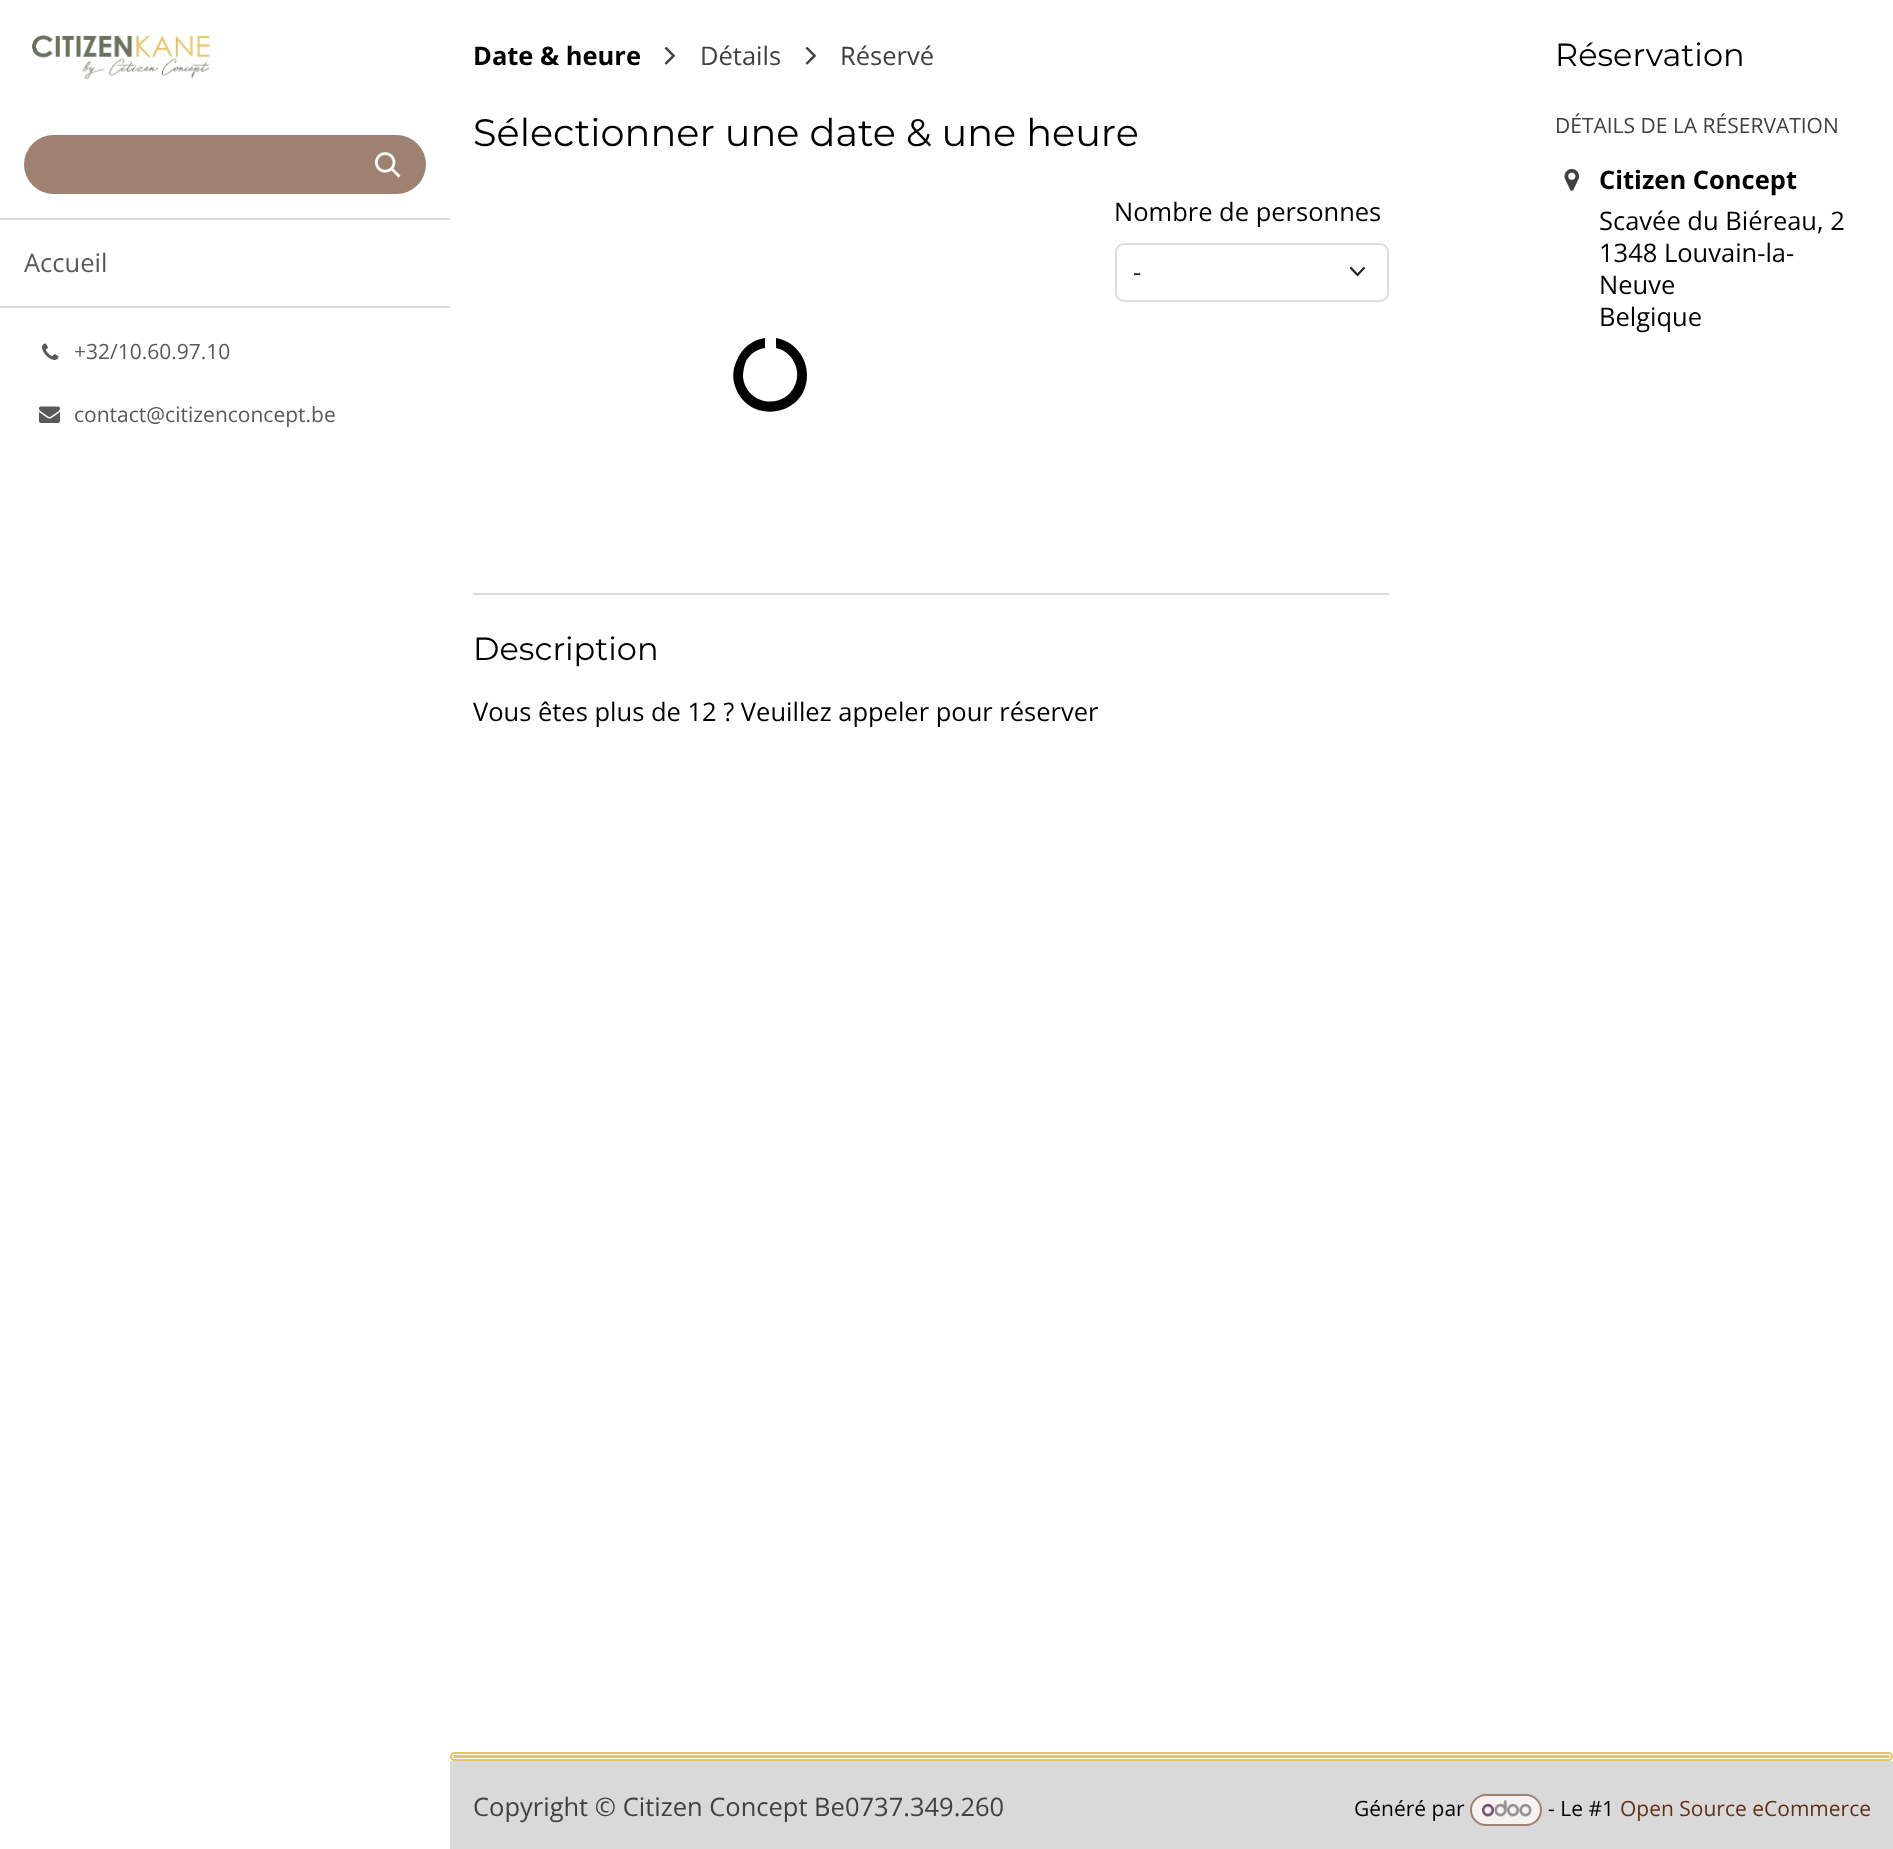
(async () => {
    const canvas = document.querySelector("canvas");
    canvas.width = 1893;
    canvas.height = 1849;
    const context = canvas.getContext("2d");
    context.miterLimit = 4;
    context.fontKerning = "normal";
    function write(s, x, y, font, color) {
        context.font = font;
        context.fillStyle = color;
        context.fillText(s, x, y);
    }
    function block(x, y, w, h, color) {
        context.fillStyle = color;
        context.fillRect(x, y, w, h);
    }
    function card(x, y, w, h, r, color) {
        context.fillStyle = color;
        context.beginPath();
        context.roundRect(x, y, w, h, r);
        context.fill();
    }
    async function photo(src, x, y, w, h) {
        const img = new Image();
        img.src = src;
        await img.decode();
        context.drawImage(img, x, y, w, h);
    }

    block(0, 0, 1893, 1849, "rgb(255, 255, 255)");
    await photo("media/1.png", 32, 34, 178, 46);
    context.fillStyle = "rgb(159, 129, 114)";
    context.beginPath();
    context.roundRect(24, 135, 327, 59, [29.5, 0, 0, 29.5]);
    context.fill();
    context.beginPath();
    context.roundRect(350, 135, 76, 59, [0, 29.5, 29.5, 0]);
    context.fill();
    await photo("media/2.png", 375, 152, 26, 26);
    block(0, 218, 450, 2, "rgb(217, 217, 217)");
    block(0, 306, 450, 2, "rgb(217, 217, 217)");
    write("Accueil", 24, 272, "25.5px Open Sans", "rgb(89, 89, 89)");
    await photo("media/3.png", 42, 343, 17, 17);
    write("+32/10.60.97.10", 74, 359, "21px Open Sans", "rgb(89, 89, 89)");
    await photo("media/4.png", 39, 406, 21, 17);
    write("contact@citizenconcept.be", 74, 422, "21px Open Sans", "rgb(89, 89, 89)");
    write("Date & heure", 473, 65, "bold 25.5px Open Sans", "rgb(0, 0, 0)");
    await photo("media/5.png", 664, 46, 11, 19);
    write("Détails", 700, 65, "25.5px Open Sans", "rgb(65, 65, 65)");
    await photo("media/5.png", 805, 46, 11, 19);
    write("Réservé", 840, 65, "25.5px Open Sans", "rgb(65, 65, 65)");
    write("Sélectionner une date & une heure", 473, 146, "38.25px Montserrat", "rgb(0, 0, 0)");
    write("Nombre de personnes", 1114, 221, "25.5px Open Sans", "rgb(0, 0, 0)");
    context.beginPath();
    context.moveTo(1351, 268);
    context.lineTo(1357.5, 275);
    context.lineTo(1364, 268);
    context.strokeStyle = "rgb(33, 37, 41)";
    context.lineWidth = 2.2;
    context.lineCap = "round";
    context.lineJoin = "round";
    context.stroke();
    context.beginPath();
    context.roundRect(1116, 244, 272, 57, 8);
    context.strokeStyle = "rgb(222, 222, 223)";
    context.lineWidth = 2;
    context.lineJoin = "miter";
    context.stroke();
    write("-", 1133, 281, "25.5px Open Sans", "rgb(33, 37, 41)");
    context.fillStyle = "rgb(0, 0, 0)";
    context.beginPath();
    context.moveTo(807, 375);
    context.bezierCurveTo(807, 417, 748, 426, 735, 386);
    context.bezierCurveTo(732, 377, 733, 368, 737, 360);
    context.bezierCurveTo(742, 348, 752, 340, 765, 338);
    context.lineTo(765, 348);
    context.bezierCurveTo(757, 349, 750, 354, 746, 361);
    context.bezierCurveTo(744, 366, 743, 372, 743, 377);
    context.bezierCurveTo(746, 405, 784, 411, 795, 385);
    context.bezierCurveTo(802, 370, 792, 351, 776, 348);
    context.lineTo(776, 338);
    context.bezierCurveTo(794, 341, 807, 357, 807, 375);
    context.closePath();
    context.fill();
    block(473, 593, 916, 2, "rgb(217, 217, 217)");
    write("Description", 473, 660, "32px Montserrat", "rgb(0, 0, 0)");
    write("Vous êtes plus de 12 ? Veuillez appeler pour réserver", 473, 721, "25.5px Open Sans", "rgb(0, 0, 0)");
    write("Réservation", 1555, 66, "32px Montserrat", "rgb(0, 0, 0)");
    write("DÉTAILS DE LA RÉSERVATION", 1555, 133, "21px Open Sans", "rgb(65, 65, 65)");
    await photo("media/6.png", 1564, 169, 16, 22);
    write("Citizen Concept", 1599, 189, "bold 25.5px Open Sans", "rgb(0, 0, 0)");
    write("Scavée du Biéreau, 2", 1599, 230, "25.5px Open Sans", "rgb(0, 0, 0)");
    write("1348 Louvain-la-", 1599, 262, "25.5px Open Sans", "rgb(0, 0, 0)");
    write("Neuve", 1599, 294, "25.5px Open Sans", "rgb(0, 0, 0)");
    write("Belgique", 1599, 326, "25.5px Open Sans", "rgb(0, 0, 0)");
    context.beginPath();
    context.roundRect(451, 1753, 1441, 7, 3.5);
    context.strokeStyle = "rgb(231, 195, 104)";
    context.stroke();
    card(453, 1755, 1437, 3, 1.5, "rgb(231, 195, 104)");
    block(450, 1761, 1443, 88, "rgb(217, 217, 217)");
    write("Copyright © Citizen Concept Be0737.349.260", 473, 1816, "25.5px Open Sans", "rgb(65, 65, 65)");
    write("Généré par", 1354, 1816, "21px Open Sans", "rgb(0, 0, 0)");
    context.fillStyle = "rgb(245, 242, 241)";
    context.beginPath();
    context.roundRect(1471, 1795, 70, 30, 15);
    context.fill();
    context.strokeStyle = "rgb(159, 129, 114)";
    context.stroke();
    await photo("media/7.png", 1482, 1800, 50, 17);
    write("- Le #1", 1548, 1816, "21px Open Sans", "rgb(0, 0, 0)");
    write("Open Source eCommerce", 1620, 1816, "21px Open Sans", "rgb(98, 48, 23)");
})();
